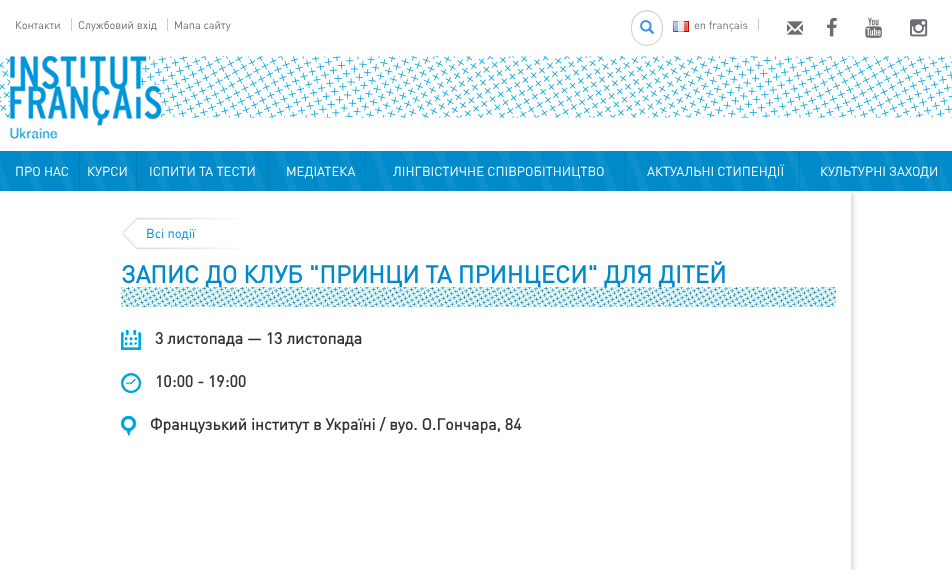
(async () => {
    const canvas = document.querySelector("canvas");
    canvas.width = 952;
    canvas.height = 570;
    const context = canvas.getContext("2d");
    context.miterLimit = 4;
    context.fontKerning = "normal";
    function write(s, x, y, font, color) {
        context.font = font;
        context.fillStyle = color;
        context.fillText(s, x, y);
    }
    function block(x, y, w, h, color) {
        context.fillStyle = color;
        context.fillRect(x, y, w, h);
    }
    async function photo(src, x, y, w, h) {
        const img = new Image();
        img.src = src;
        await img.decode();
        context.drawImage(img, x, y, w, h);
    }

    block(0, 0, 952, 570, "rgb(255, 255, 255)");
    write("Контакти", 15, 29, "11px DIN", "rgb(106, 109, 114)");
    block(71, 18, 1, 13, "rgb(204, 204, 204)");
    write("Службовий вхід", 78, 29, "11px DIN", "rgb(106, 109, 114)");
    block(167, 18, 1, 13, "rgb(204, 204, 204)");
    write("Мапа сайту", 174, 29, "11px DIN", "rgb(106, 109, 114)");
    context.fillStyle = "rgb(236, 236, 236)";
    context.beginPath();
    context.moveTo(647, 12);
    context.bezierCurveTo(659, 12, 664, 25, 661, 35);
    context.bezierCurveTo(662, 32.5, 662, 29.5, 662, 27);
    context.bezierCurveTo(662, 6, 632, 5.5, 632, 27.5);
    context.bezierCurveTo(632, 30, 632, 32.5, 633, 35);
    context.bezierCurveTo(630, 25, 635, 12, 647, 12);
    context.closePath();
    context.fill();
    context.beginPath();
    context.roundRect(631.5, 10.5, 31, 35, 15.5);
    context.strokeStyle = "rgb(204, 204, 204)";
    context.stroke();
    await photo("media/1.png", 640, 20, 15, 14);
    await photo("media/2.png", 673, 21, 16, 11);
    write("en français", 694, 29, "11px DIN", "rgb(106, 109, 114)");
    block(758, 18, 1, 13, "rgb(204, 204, 204)");
    await photo("media/3.png", 787, 21, 16, 14);
    await photo("media/4.png", 827, 17, 10, 20);
    await photo("media/5.png", 865, 17, 17, 21);
    await photo("media/6.png", 910, 19, 18, 18);
    await photo("media/7.png", 0, 56, 952, 62);
    await photo("media/8.png", 10, 56, 152, 84);
    await photo("media/9.png", 0, 151, 952, 40);
    block(79, 151, 1, 40, "rgba(0, 0, 0, 0.1)");
    write("ПРО НАС", 15, 176, "13px DIN", "rgb(255, 255, 255)");
    block(136, 151, 1, 40, "rgba(0, 0, 0, 0.1)");
    write("КУРСИ", 87, 176, "13px DIN", "rgb(255, 255, 255)");
    block(268, 151, 1, 40, "rgb(0, 124, 181)");
    write("ІСПИТИ ТА ТЕСТИ", 149, 176, "13px DIN", "rgb(255, 255, 255)");
    block(365, 151, 1, 40, "rgb(0, 125, 181)");
    write("МЕДІАТЕКА", 286, 176, "13px DIN", "rgb(255, 255, 255)");
    block(625, 151, 1, 40, "rgba(0, 0, 0, 0.1)");
    write("ЛІНГВІСТИЧНЕ СПІВРОБІТНИЦТВО", 393, 176, "13px DIN", "rgb(255, 255, 255)");
    block(799, 151, 1, 40, "rgba(0, 0, 0, 0.1)");
    write("АКТУАЛЬНІ СТИПЕНДІЇ", 647, 176, "13px DIN", "rgb(255, 255, 255)");
    write("КУЛЬТУРНІ ЗАХОДИ", 820, 176, "13px DIN", "rgb(255, 255, 255)");
    context.save();
    context.beginPath();
    context.moveTo(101, 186);
    context.lineTo(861, 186);
    context.lineTo(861, 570);
    context.lineTo(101, 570);
    context.closePath();
    context.moveTo(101, 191);
    context.lineTo(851, 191);
    context.lineTo(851, 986);
    context.lineTo(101, 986);
    context.closePath();
    context.clip("evenodd");
    context.fillStyle = "rgba(168, 168, 168, 0.38)";
    context.filter = "blur(2px)";
    context.beginPath();
    context.rect(108, 193, 746, 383);
    context.fill();
    context.filter = "none";
    context.restore();
    await photo("media/10.png", 122, 217, 120, 33);
    write("Всі події", 146, 238, "13px DIN", "rgb(0, 138, 201)");
    await photo("media/11.png", 121, 287, 715, 20);
    write("ЗАПИС ДО КЛУБ \"ПРИНЦИ ТА ПРИНЦЕСИ\" ДЛЯ ДІТЕЙ", 121, 283, "bold 24px DIN", "rgb(0, 138, 201)");
    await photo("media/12.png", 121, 330, 20, 20);
    write("3 листопада — 13 листопада", 155, 344, "bold 16px DIN", "rgb(51, 51, 51)");
    await photo("media/13.png", 121, 373, 20, 20);
    write("10:00 - 19:00", 155, 387, "bold 16px DIN", "rgb(51, 51, 51)");
    await photo("media/14.png", 121, 416, 15, 20);
    write("Французький інститут в Україні / вуо. О.Гончара, 84", 150, 430, "bold 16px DIN", "rgb(51, 51, 51)");
})();
